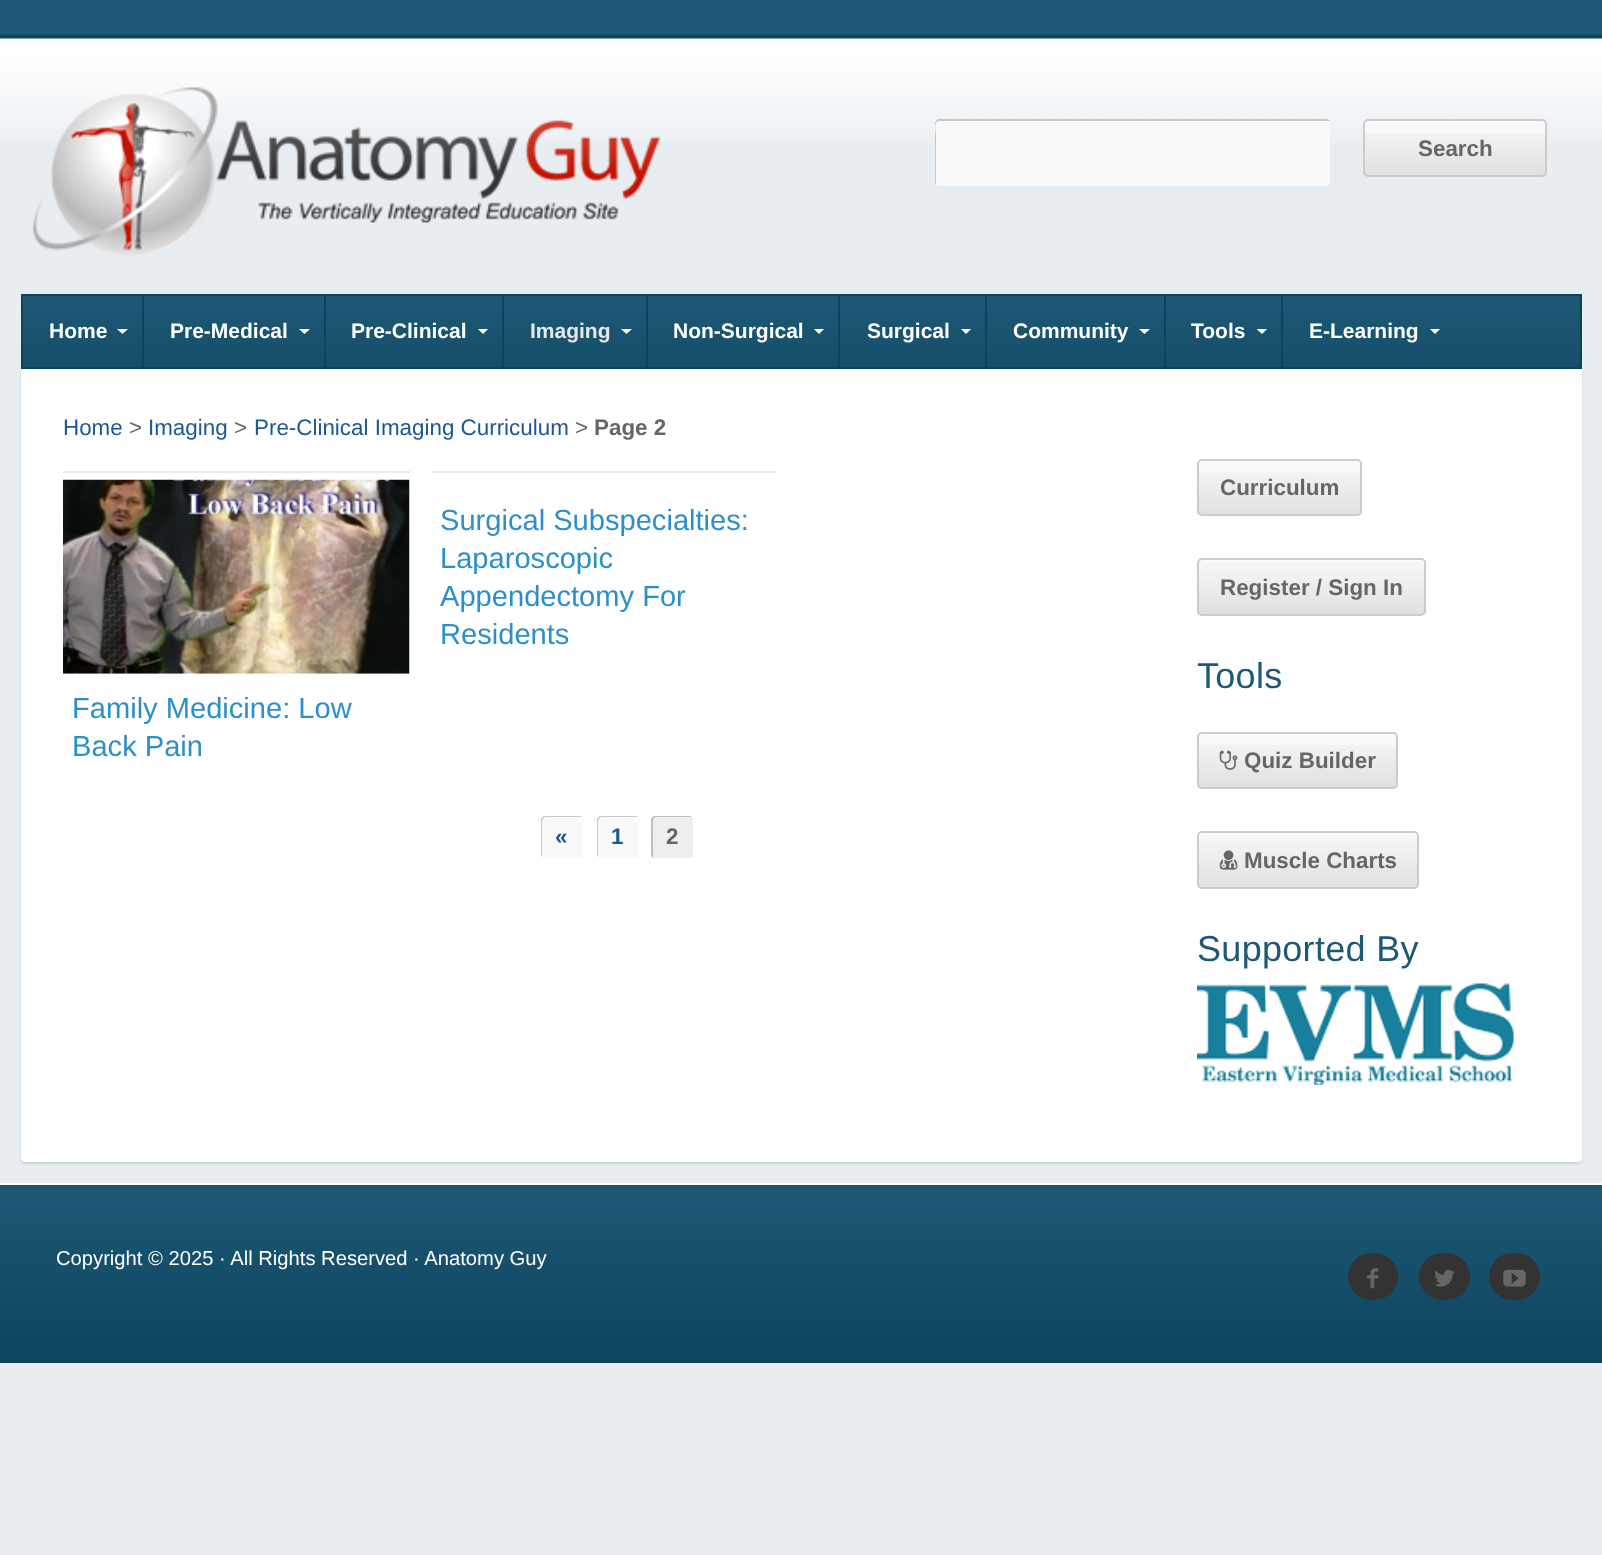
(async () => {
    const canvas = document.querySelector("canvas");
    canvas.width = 1602;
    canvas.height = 1555;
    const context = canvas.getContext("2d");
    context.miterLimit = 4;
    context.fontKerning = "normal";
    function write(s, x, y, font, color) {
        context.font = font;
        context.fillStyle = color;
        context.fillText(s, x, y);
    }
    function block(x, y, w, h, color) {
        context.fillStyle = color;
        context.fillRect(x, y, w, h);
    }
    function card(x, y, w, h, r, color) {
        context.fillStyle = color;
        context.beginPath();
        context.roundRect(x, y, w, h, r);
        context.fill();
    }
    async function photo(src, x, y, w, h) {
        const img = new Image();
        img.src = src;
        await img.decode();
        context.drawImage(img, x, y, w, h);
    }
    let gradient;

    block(0, 0, 1602, 1555, "rgb(232, 237, 241)");
    await photo("media/1.png", 0, 0, 1602, 143);
    await photo("media/2.png", 32, 87, 629, 169);
    card(935, 119, 395, 67, 4, "rgb(249, 249, 249)");
    context.fillStyle = "rgba(0, 0, 0, 0.2)";
    context.beginPath();
    context.moveTo(940, 121);
    context.lineTo(1330, 121);
    context.bezierCurveTo(1329, 120, 1328, 119, 1326, 119);
    context.lineTo(939, 119);
    context.bezierCurveTo(937, 119, 935, 121, 935, 123);
    context.lineTo(935, 182);
    context.bezierCurveTo(935, 183, 935, 184, 936, 185);
    context.lineTo(936, 134);
    context.bezierCurveTo(936, 130, 933, 121, 940, 121);
    context.closePath();
    context.fill();
    card(1363, 119, 184, 58, 5, "rgb(249, 249, 249)");
    gradient = context.createLinearGradient(1455, 121, 1455, 175);
    gradient.addColorStop(0, "rgba(0, 0, 0, 0)");
    gradient.addColorStop(1, "rgba(0, 0, 0, 0.1)");
    context.fillStyle = gradient;
    context.fillRect(1363, 133, 184, 42);
    context.fillStyle = "rgb(253, 253, 253)";
    context.beginPath();
    context.moveTo(1368, 122);
    context.lineTo(1542, 122);
    context.bezierCurveTo(1544, 122, 1545, 124, 1545, 126);
    context.lineTo(1545, 125);
    context.bezierCurveTo(1545, 123, 1543, 121, 1541, 121);
    context.lineTo(1369, 121);
    context.bezierCurveTo(1367, 121, 1365, 123, 1365, 125);
    context.lineTo(1365, 126);
    context.bezierCurveTo(1365, 124, 1367, 122, 1368, 122);
    context.closePath();
    context.fill();
    context.beginPath();
    context.roundRect(1364, 120, 182, 56, 4);
    context.strokeStyle = "rgb(204, 204, 204)";
    context.lineWidth = 2;
    context.stroke();
    write("Search", 1418, 156, "bold 22.4px Liberation Sans", "rgb(102, 102, 102)");
    gradient = context.createLinearGradient(802, 296, 802, 368);
    gradient.addColorStop(0, "rgb(29, 89, 117)");
    gradient.addColorStop(1, "rgb(21, 78, 105)");
    context.fillStyle = gradient;
    context.fillRect(23, 296, 1557, 71);
    context.fillStyle = "rgba(0, 0, 0, 0.12)";
    context.filter = "blur(1px)";
    context.beginPath();
    context.roundRect(21, 371, 1561, 793, 4);
    context.fill();
    context.filter = "none";
    context.strokeStyle = "rgb(12, 67, 93)";
    context.strokeRect(22, 295, 1559, 73);
    write("Home", 49, 338, "bold 21px Liberation Sans", "rgb(255, 255, 255)");
    context.beginPath();
    context.moveTo(117, 329);
    context.lineTo(128, 329);
    context.lineTo(122.5, 334);
    context.closePath();
    context.fill();
    block(142, 296, 2, 72, "rgb(12, 67, 93)");
    write("Pre-Medical", 170, 338, "bold 21px Liberation Sans", "rgb(255, 255, 255)");
    context.beginPath();
    context.moveTo(299, 329);
    context.lineTo(310, 329);
    context.lineTo(304.5, 334);
    context.closePath();
    context.fill();
    block(324, 296, 2, 72, "rgb(12, 67, 93)");
    write("Pre-Clinical", 351, 338, "bold 21px Liberation Sans", "rgb(255, 255, 255)");
    context.beginPath();
    context.moveTo(478, 329);
    context.lineTo(488, 329);
    context.lineTo(483, 334);
    context.closePath();
    context.fill();
    block(502, 296, 2, 72, "rgb(12, 67, 93)");
    write("Imaging", 530, 338, "bold 21px Liberation Sans", "rgb(232, 232, 232)");
    context.fillStyle = "rgb(255, 255, 255)";
    context.beginPath();
    context.moveTo(621, 329);
    context.lineTo(632, 329);
    context.lineTo(626.5, 334);
    context.closePath();
    context.fill();
    block(646, 296, 2, 72, "rgb(12, 67, 93)");
    write("Non-Surgical", 673, 338, "bold 21px Liberation Sans", "rgb(255, 255, 255)");
    context.beginPath();
    context.moveTo(814, 329);
    context.lineTo(824, 329);
    context.lineTo(819, 334);
    context.closePath();
    context.fill();
    block(838, 296, 2, 72, "rgb(12, 67, 93)");
    write("Surgical", 867, 338, "bold 21px Liberation Sans", "rgb(255, 255, 255)");
    context.beginPath();
    context.moveTo(961, 329);
    context.lineTo(971, 329);
    context.lineTo(966, 334);
    context.closePath();
    context.fill();
    block(985, 296, 2, 72, "rgb(12, 67, 93)");
    write("Community", 1013, 338, "bold 21px Liberation Sans", "rgb(255, 255, 255)");
    context.beginPath();
    context.moveTo(1139, 329);
    context.lineTo(1150, 329);
    context.lineTo(1144.5, 334);
    context.closePath();
    context.fill();
    block(1164, 296, 2, 72, "rgb(12, 67, 93)");
    write("Tools", 1191, 338, "bold 21px Liberation Sans", "rgb(255, 255, 255)");
    context.beginPath();
    context.moveTo(1256.5, 329);
    context.lineTo(1267, 329);
    context.lineTo(1262, 334);
    context.closePath();
    context.fill();
    block(1281, 296, 2, 72, "rgb(12, 67, 93)");
    write("E-Learning", 1309, 338, "bold 21px Liberation Sans", "rgb(255, 255, 255)");
    context.beginPath();
    context.moveTo(1430, 329);
    context.lineTo(1440, 329);
    context.lineTo(1435, 334);
    context.closePath();
    context.fill();
    card(21, 369, 1561, 793, 4, "rgb(255, 255, 255)");
    write("Home", 63, 435, "22.4px Liberation Sans", "rgb(29, 87, 149)");
    write(">", 129, 435, "22.4px Liberation Sans", "rgb(102, 102, 102)");
    write("Imaging", 148, 435, "22.4px Liberation Sans", "rgb(29, 87, 149)");
    write(">", 234, 435, "22.4px Liberation Sans", "rgb(102, 102, 102)");
    write("Pre-Clinical Imaging Curriculum", 254, 435, "22.4px Liberation Sans", "rgb(29, 87, 149)");
    write(">", 575, 435, "22.4px Liberation Sans", "rgb(102, 102, 102)");
    write("Page 2", 594, 435, "bold 22.4px Liberation Sans", "rgb(102, 102, 102)");
    block(431, 471, 346, 2, "rgb(235, 235, 235)");
    write("Surgical Subspecialties:", 440, 530, "29.1px Liberation Sans", "rgb(44, 143, 201)");
    write("Laparoscopic", 440, 568, "29.1px Liberation Sans", "rgb(44, 143, 201)");
    write("Appendectomy For", 440, 606, "29.1px Liberation Sans", "rgb(44, 143, 201)");
    write("Residents", 440, 644, "29.1px Liberation Sans", "rgb(44, 143, 201)");
    block(63, 471, 347, 2, "rgb(235, 235, 235)");
    await photo("media/3.png", 63, 479, 347, 195);
    write("Family Medicine: Low", 72, 718, "29.1px Liberation Sans", "rgb(44, 143, 201)");
    write("Back Pain", 72, 756, "29.1px Liberation Sans", "rgb(44, 143, 201)");
    card(541, 816, 42, 42, 4, "rgb(249, 249, 249)");
    context.fillStyle = "rgb(199, 199, 199)";
    context.beginPath();
    context.moveTo(546, 817);
    context.lineTo(582, 817);
    context.bezierCurveTo(581, 816, 580, 816, 579, 816);
    context.lineTo(545, 816);
    context.bezierCurveTo(543, 816, 541, 818, 541, 820);
    context.lineTo(541, 854);
    context.bezierCurveTo(541, 855, 541, 856, 542, 857);
    context.lineTo(542, 827);
    context.bezierCurveTo(542, 824, 541, 817, 546, 817);
    context.closePath();
    context.fill();
    write("«", 555, 844, "bold 22.4px Liberation Sans", "rgb(29, 87, 149)");
    card(597, 816, 42, 42, 4, "rgb(249, 249, 249)");
    context.fillStyle = "rgb(199, 199, 199)";
    context.beginPath();
    context.moveTo(602, 817);
    context.lineTo(638, 817);
    context.bezierCurveTo(637, 816, 636, 816, 635, 816);
    context.lineTo(601, 816);
    context.bezierCurveTo(599, 816, 597, 818, 597, 820);
    context.lineTo(597, 854);
    context.bezierCurveTo(597, 855, 597, 856, 598, 857);
    context.lineTo(598, 827);
    context.bezierCurveTo(598, 824, 597, 817, 602, 817);
    context.closePath();
    context.fill();
    write("1", 611, 844, "bold 22.4px Liberation Sans", "rgb(29, 87, 149)");
    card(651, 816, 42, 42, 4, "rgb(238, 238, 238)");
    context.fillStyle = "rgba(0, 0, 0, 0.2)";
    context.beginPath();
    context.moveTo(656, 817);
    context.lineTo(692, 817);
    context.bezierCurveTo(691, 816, 690, 816, 689, 816);
    context.lineTo(655, 816);
    context.bezierCurveTo(653, 816, 651, 818, 651, 820);
    context.lineTo(651, 854);
    context.bezierCurveTo(651, 856, 652, 857, 653, 858);
    context.lineTo(653, 827);
    context.bezierCurveTo(653, 825, 652, 817, 656, 817);
    context.closePath();
    context.fill();
    write("2", 666, 844, "bold 22.4px Liberation Sans", "rgb(102, 102, 102)");
    card(1197, 459, 165, 57, 5, "rgb(249, 249, 249)");
    context.save();
    context.beginPath();
    context.roundRect(1197, 459, 165, 57, 5);
    context.clip();
    gradient = context.createLinearGradient(1279, 460, 1279, 515);
    gradient.addColorStop(0, "rgba(0, 0, 0, 0)");
    gradient.addColorStop(1, "rgba(0, 0, 0, 0.1)");
    context.fillStyle = gradient;
    context.fillRect(1197, 472, 165, 43);
    context.restore();
    context.fillStyle = "rgb(252, 252, 252)";
    context.beginPath();
    context.moveTo(1202, 462);
    context.lineTo(1356, 462);
    context.bezierCurveTo(1358, 462, 1360, 464, 1360, 466);
    context.lineTo(1360, 464);
    context.bezierCurveTo(1360, 462, 1358, 460, 1356, 460);
    context.lineTo(1203, 460);
    context.bezierCurveTo(1201, 460, 1199, 462, 1199, 464);
    context.lineTo(1199, 466);
    context.bezierCurveTo(1199, 464, 1200, 462, 1202, 462);
    context.closePath();
    context.fill();
    context.beginPath();
    context.roundRect(1198, 460, 163, 55, 4);
    context.strokeStyle = "rgb(204, 204, 204)";
    context.stroke();
    write("Curriculum", 1220, 495, "bold 22.4px Liberation Sans", "rgb(102, 102, 102)");
    context.save();
    context.beginPath();
    context.roundRect(1197, 558, 229, 58, 5);
    context.clip();
    gradient = context.createLinearGradient(1312, 560, 1312, 614);
    gradient.addColorStop(0, "rgb(249, 249, 249)");
    gradient.addColorStop(1, "rgb(224, 224, 224)");
    context.fillStyle = gradient;
    context.fillRect(1197, 560, 229, 54);
    context.restore();
    context.fillStyle = "rgba(255, 255, 255, 0.6)";
    context.beginPath();
    context.moveTo(1202, 562);
    context.lineTo(1421, 562);
    context.bezierCurveTo(1423, 562, 1424, 563, 1424, 565);
    context.lineTo(1424, 613);
    context.bezierCurveTo(1425, 612, 1425, 611, 1425, 610);
    context.lineTo(1425, 564);
    context.bezierCurveTo(1425, 562, 1423, 560, 1421, 560);
    context.lineTo(1203, 560);
    context.bezierCurveTo(1201, 560, 1199, 562, 1199, 564);
    context.lineTo(1199, 565);
    context.bezierCurveTo(1199, 563, 1200, 562, 1202, 562);
    context.closePath();
    context.fill();
    context.beginPath();
    context.roundRect(1198, 559, 227, 56, 4);
    context.stroke();
    write("Register / Sign In", 1220, 595, "bold 22.4px Liberation Sans", "rgb(102, 102, 102)");
    context.letterSpacing = "0.3px";
    write("Tools", 1197, 688, "36px Liberation Sans", "rgb(29, 89, 117)");
    card(1197, 732, 201, 57, 5, "rgb(249, 249, 249)");
    context.save();
    context.beginPath();
    context.roundRect(1197, 732, 201, 57, 5);
    context.clip();
    gradient = context.createLinearGradient(1298, 733, 1298, 788);
    gradient.addColorStop(0, "rgba(0, 0, 0, 0)");
    gradient.addColorStop(1, "rgba(0, 0, 0, 0.1)");
    context.fillStyle = gradient;
    context.fillRect(1197, 745, 201, 43);
    context.restore();
    context.fillStyle = "rgba(255, 255, 255, 0.6)";
    context.beginPath();
    context.moveTo(1202, 735);
    context.lineTo(1393, 735);
    context.bezierCurveTo(1395, 735, 1396, 737, 1396, 738);
    context.lineTo(1396, 787);
    context.bezierCurveTo(1397, 786, 1397, 785, 1397, 784);
    context.lineTo(1397, 737);
    context.bezierCurveTo(1397, 735, 1395, 733, 1393, 733);
    context.lineTo(1203, 733);
    context.bezierCurveTo(1201, 733, 1199, 735, 1199, 737);
    context.lineTo(1199, 738);
    context.bezierCurveTo(1199, 737, 1200, 735, 1202, 735);
    context.closePath();
    context.fill();
    context.beginPath();
    context.roundRect(1198, 733, 199, 55, 4);
    context.stroke();
    await photo("media/4.png", 1219, 750, 19, 20);
    context.letterSpacing = "0px";
    write("Quiz Builder", 1244, 768, "bold 22.4px Liberation Sans", "rgb(102, 102, 102)");
    context.save();
    context.beginPath();
    context.roundRect(1197, 831, 222, 58, 5);
    context.clip();
    gradient = context.createLinearGradient(1308, 833, 1308, 887);
    gradient.addColorStop(0, "rgb(249, 249, 249)");
    gradient.addColorStop(1, "rgb(224, 224, 224)");
    context.fillStyle = gradient;
    context.fillRect(1197, 833, 222, 54);
    context.restore();
    context.fillStyle = "rgb(252, 252, 252)";
    context.beginPath();
    context.moveTo(1202, 835);
    context.lineTo(1414, 835);
    context.bezierCurveTo(1416, 835, 1418, 836, 1418, 838);
    context.bezierCurveTo(1418, 835, 1417, 833, 1414, 833);
    context.lineTo(1201, 833);
    context.bezierCurveTo(1199, 834, 1199, 836, 1199, 838);
    context.bezierCurveTo(1199, 836, 1200, 835, 1202, 835);
    context.closePath();
    context.fill();
    context.beginPath();
    context.roundRect(1198, 832, 220, 56, 4);
    context.stroke();
    await photo("media/5.png", 1219, 850, 19, 20);
    write("Muscle Charts", 1244, 868, "bold 22.4px Liberation Sans", "rgb(102, 102, 102)");
    context.letterSpacing = "0.3px";
    write("Supported By", 1197, 961, "36px Liberation Sans", "rgb(29, 89, 117)");
    await photo("media/6.png", 1197, 983, 317, 102);
    block(0, 1183, 1602, 2, "rgb(255, 255, 255)");
    gradient = context.createLinearGradient(802, 1185, 802, 1363);
    gradient.addColorStop(0, "rgb(29, 89, 117)");
    gradient.addColorStop(1, "rgb(12, 68, 93)");
    context.fillStyle = gradient;
    context.fillRect(0, 1185, 1602, 178);
    context.letterSpacing = "0px";
    write("Copyright © 2025 · All Rights Reserved · Anatomy Guy", 56, 1265, "20.2px Liberation Sans", "rgb(255, 255, 255)");
    card(1348, 1253, 50, 47, 23.5, "rgb(51, 51, 51)");
    await photo("media/7.png", 1367, 1268, 12, 21);
    card(1419, 1253, 51, 47, 23.5, "rgb(51, 51, 51)");
    await photo("media/8.png", 1434, 1269, 21, 18);
    card(1489, 1253, 51, 47, 23.5, "rgb(51, 51, 51)");
    await photo("media/9.png", 1503, 1269, 23, 18);
})();
